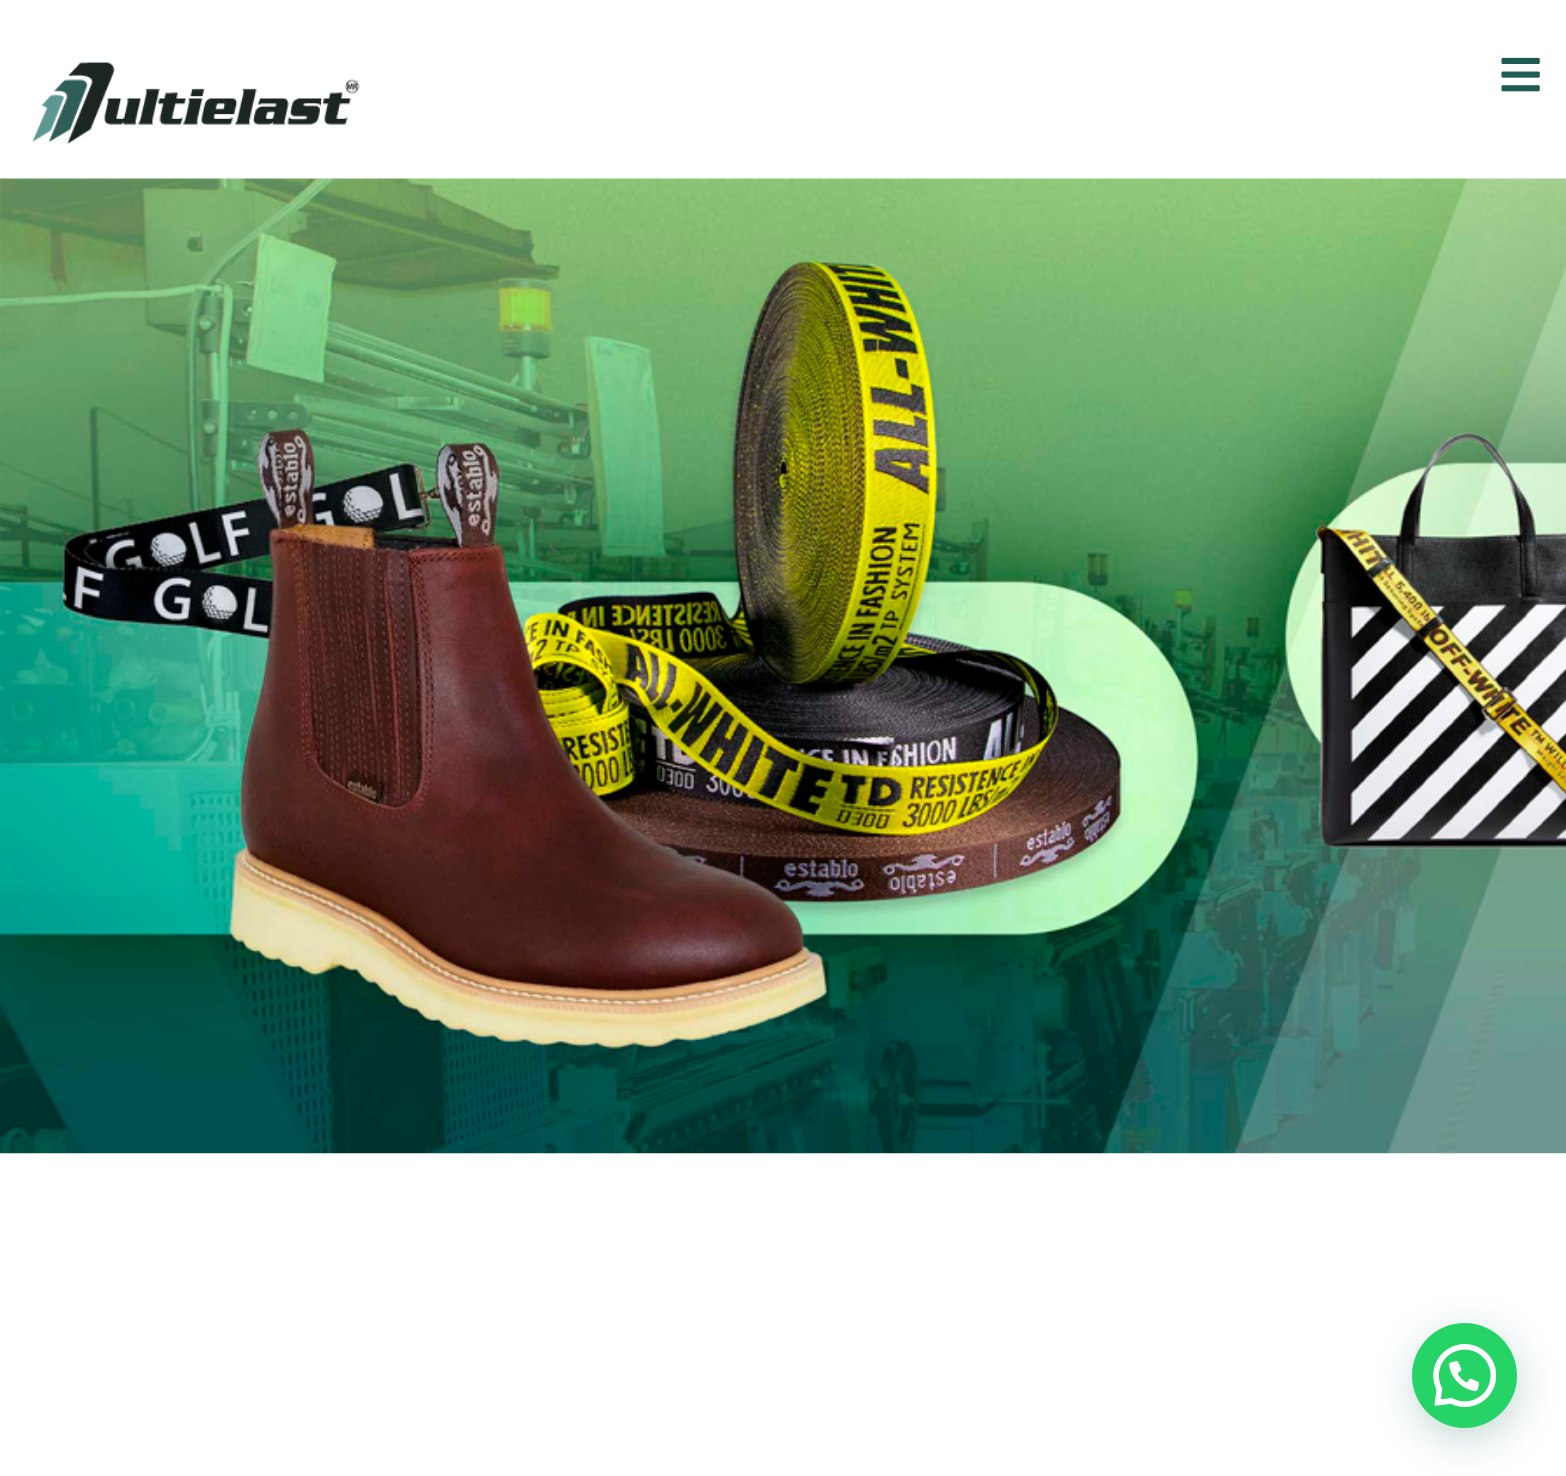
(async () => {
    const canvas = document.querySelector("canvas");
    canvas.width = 1566;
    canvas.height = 1476;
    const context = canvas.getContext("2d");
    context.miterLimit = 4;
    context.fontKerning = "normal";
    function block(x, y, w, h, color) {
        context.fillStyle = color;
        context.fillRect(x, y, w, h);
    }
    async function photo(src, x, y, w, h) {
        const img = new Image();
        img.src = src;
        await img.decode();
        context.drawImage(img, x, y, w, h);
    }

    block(0, 0, 1566, 1476, "rgb(255, 255, 255)");
    await photo("media/1.png", 32, 62, 328, 82);
    await photo("media/2.png", 1501, 57, 39, 35);
    await photo("media/3.png", 0, 178, 1566, 976);
    context.fillStyle = "rgba(7, 94, 84, 0.24)";
    context.filter = "blur(21px)";
    context.beginPath();
    context.roundRect(1414, 1334, 105, 105, 52.5);
    context.fill();
    context.filter = "none";
    context.fillStyle = "rgb(37, 211, 102)";
    context.beginPath();
    context.arc(1464.5, 1375.5, 52.5, 0, Math.PI * 2);
    context.fill();
    await photo("media/4.png", 1433, 1344, 63, 63);
})();
